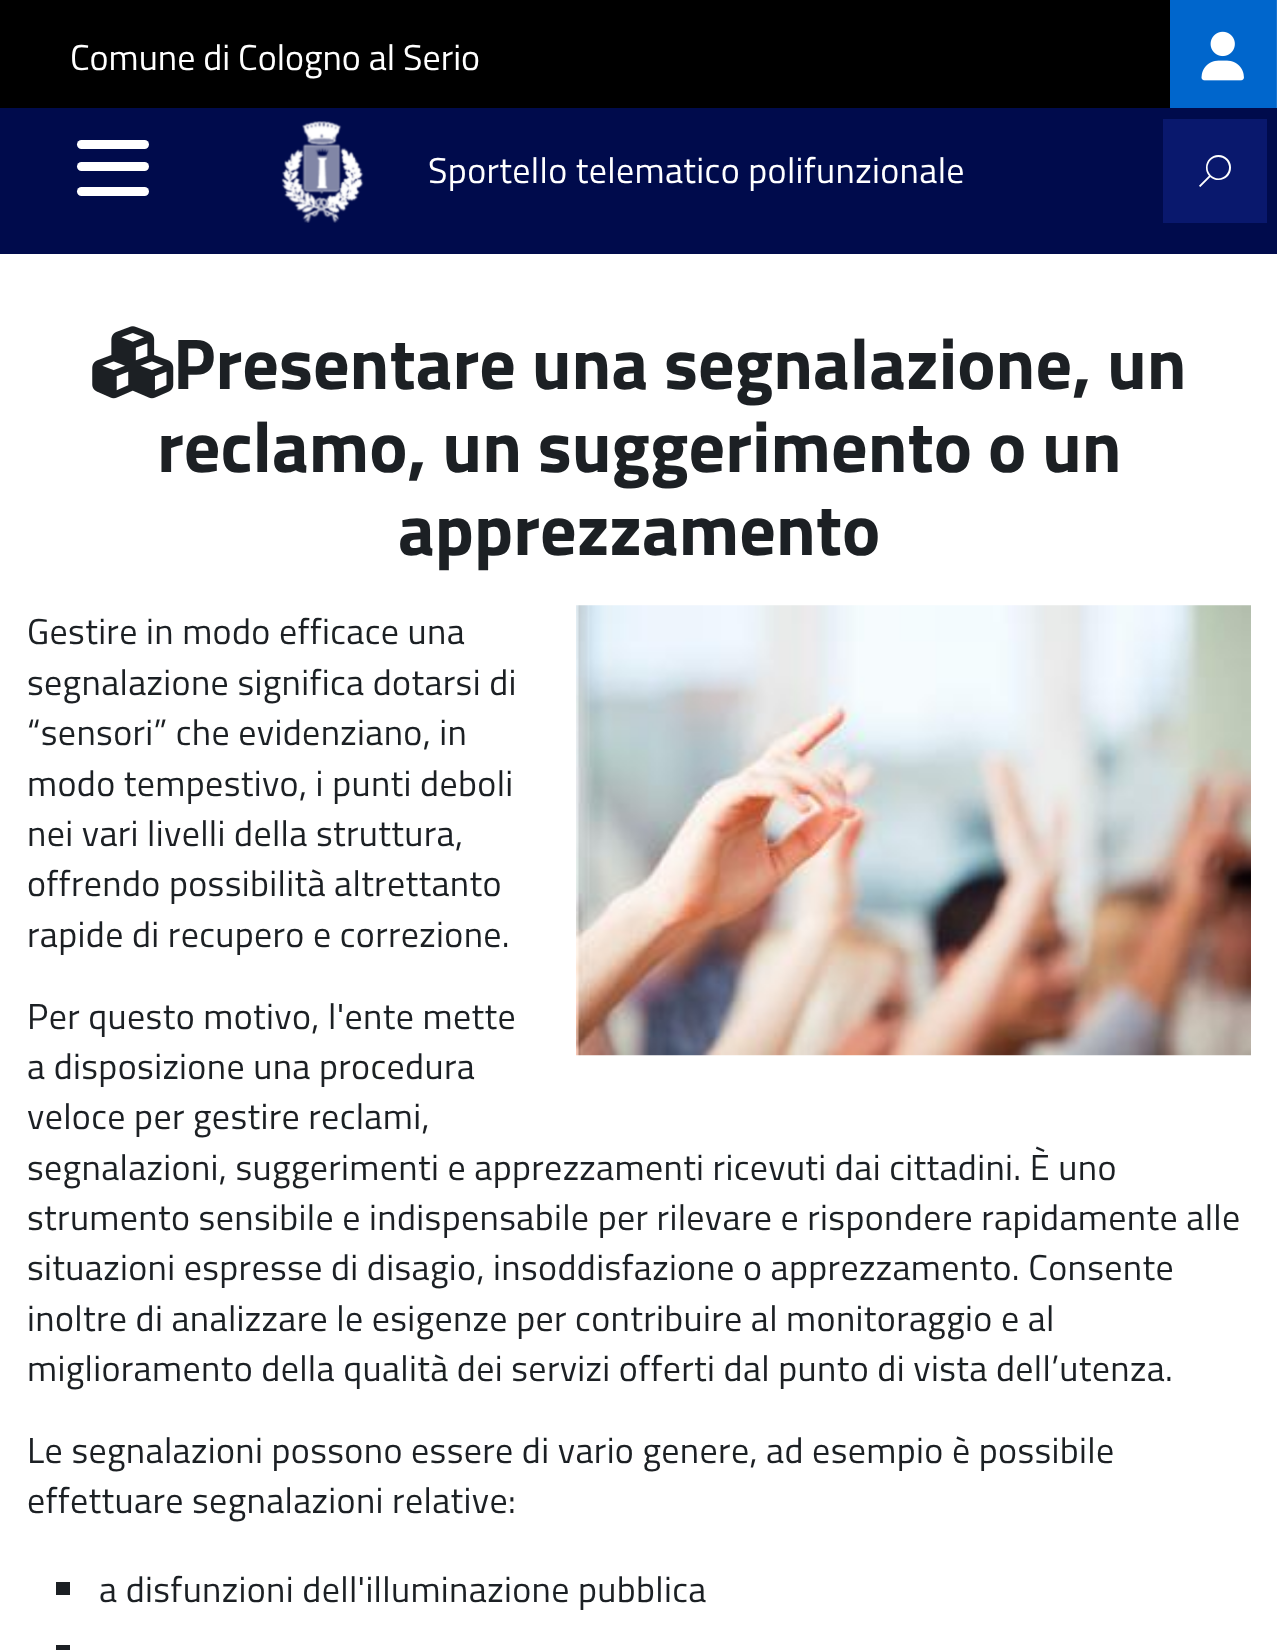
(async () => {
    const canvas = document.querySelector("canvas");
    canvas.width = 1277;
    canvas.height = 1650;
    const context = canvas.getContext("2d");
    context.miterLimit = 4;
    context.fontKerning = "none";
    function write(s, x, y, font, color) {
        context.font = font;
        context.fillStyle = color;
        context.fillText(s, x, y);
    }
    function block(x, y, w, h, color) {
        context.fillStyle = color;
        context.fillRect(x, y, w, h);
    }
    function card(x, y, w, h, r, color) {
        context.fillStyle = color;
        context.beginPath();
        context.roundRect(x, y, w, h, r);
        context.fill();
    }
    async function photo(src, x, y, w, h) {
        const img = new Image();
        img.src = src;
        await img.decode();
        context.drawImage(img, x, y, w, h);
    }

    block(0, 0, 1277, 1650, "rgb(255, 255, 255)");
    block(0, 0, 1170, 108, "rgb(0, 0, 0)");
    write("Comune di Cologno al Serio", 70, 70, "36px Titillium Web", "rgb(255, 255, 255)");
    block(1170, 0, 106, 108, "rgb(0, 102, 204)");
    block(1276, 0, 1, 108, "rgb(26, 117, 209)");
    await photo("media/1.png", 1201, 31, 43, 50);
    block(0, 108, 1277, 146, "rgb(0, 11, 76)");
    card(77, 162, 72, 9, 4.5, "rgb(255, 255, 255)");
    card(77, 140, 72, 9, 4.5, "rgb(255, 255, 255)");
    card(77, 187, 72, 9, 4.5, "rgb(255, 255, 255)");
    await photo("media/2.png", 281, 121, 83, 102);
    context.letterSpacing = "0.35px";
    write("Sportello telematico polifunzionale", 428, 183, "36px Titillium Web", "rgb(255, 255, 255)");
    block(1163, 119, 104, 104, "rgb(9, 24, 109)");
    context.letterSpacing = "0px";
    write("🔍", 1199, 185, "32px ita", "rgb(255, 255, 255)");
    await photo("media/3.png", 92, 326, 82, 73);
    write("Presentare una segnalazione, un", 173, 389, "bold 72px Titillium Web", "rgb(28, 32, 36)");
    write("reclamo, un suggerimento o un", 157, 472, "bold 72px Titillium Web", "rgb(28, 32, 36)");
    write("apprezzamento", 398, 555, "bold 72px Titillium Web", "rgb(28, 32, 36)");
    await photo("media/4.png", 576, 605, 675, 451);
    context.letterSpacing = "0.35px";
    write("Gestire in modo efficace una", 27, 644, "36px Titillium Web", "rgb(28, 32, 36)");
    write("segnalazione significa dotarsi di", 27, 695, "36px Titillium Web", "rgb(28, 32, 36)");
    write("“sensori” che evidenziano, in", 27, 745, "36px Titillium Web", "rgb(28, 32, 36)");
    write("modo tempestivo, i punti deboli", 27, 796, "36px Titillium Web", "rgb(28, 32, 36)");
    write("nei vari livelli della struttura,", 27, 846, "36px Titillium Web", "rgb(28, 32, 36)");
    write("offrendo possibilità altrettanto", 27, 896, "36px Titillium Web", "rgb(28, 32, 36)");
    write("rapide di recupero e correzione.", 27, 947, "36px Titillium Web", "rgb(28, 32, 36)");
    write("Per questo motivo, l'ente mette", 27, 1029, "36px Titillium Web", "rgb(28, 32, 36)");
    write("a disposizione una procedura", 27, 1079, "36px Titillium Web", "rgb(28, 32, 36)");
    write("veloce per gestire reclami,", 27, 1129, "36px Titillium Web", "rgb(28, 32, 36)");
    write("segnalazioni, suggerimenti e apprezzamenti ricevuti dai cittadini. È uno", 27, 1180, "36px Titillium Web", "rgb(28, 32, 36)");
    write("strumento sensibile e indispensabile per rilevare e rispondere rapidamente alle", 27, 1230, "36px Titillium Web", "rgb(28, 32, 36)");
    write("situazioni espresse di disagio, insoddisfazione o apprezzamento. Consente", 27, 1280, "36px Titillium Web", "rgb(28, 32, 36)");
    write("inoltre di analizzare le esigenze per contribuire al monitoraggio e al", 27, 1331, "36px Titillium Web", "rgb(28, 32, 36)");
    write("miglioramento della qualità dei servizi offerti dal punto di vista dell’utenza.", 27, 1381, "36px Titillium Web", "rgb(28, 32, 36)");
    write("Le segnalazioni possono essere di vario genere, ad esempio è possibile", 27, 1463, "36px Titillium Web", "rgb(28, 32, 36)");
    write("effettuare segnalazioni relative:", 27, 1513, "36px Titillium Web", "rgb(28, 32, 36)");
    block(56, 1582, 14, 13, "rgb(28, 32, 36)");
    write("a disfunzioni dell'illuminazione pubblica", 99, 1602, "36px Titillium Web", "rgb(28, 32, 36)");
    block(56, 1645, 14, 5, "rgb(28, 32, 36)");
})();
